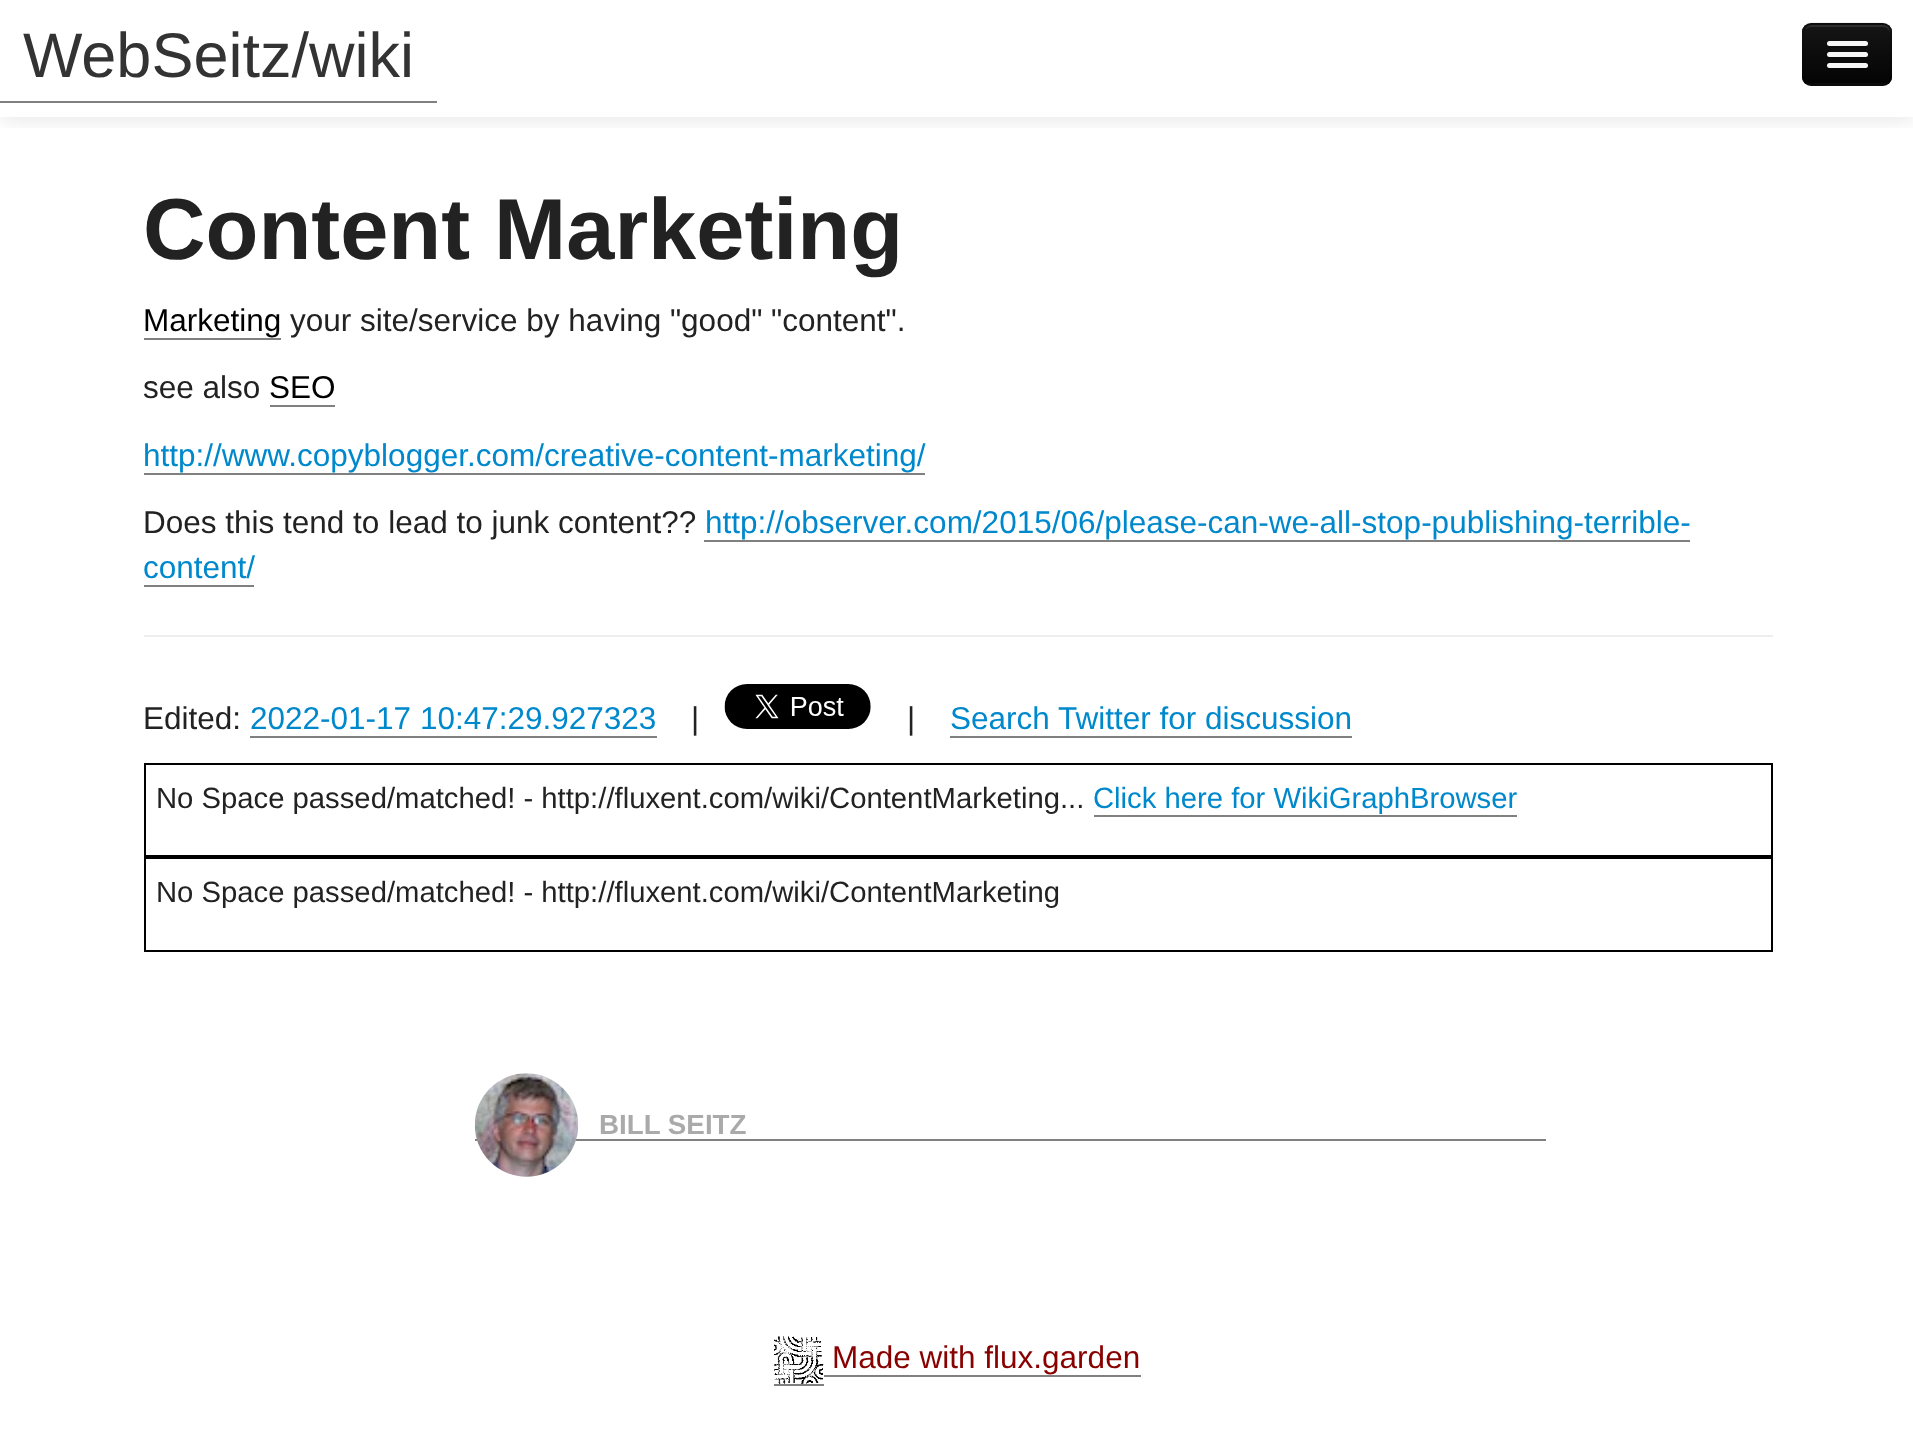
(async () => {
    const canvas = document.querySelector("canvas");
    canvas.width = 1913;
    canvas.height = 1455;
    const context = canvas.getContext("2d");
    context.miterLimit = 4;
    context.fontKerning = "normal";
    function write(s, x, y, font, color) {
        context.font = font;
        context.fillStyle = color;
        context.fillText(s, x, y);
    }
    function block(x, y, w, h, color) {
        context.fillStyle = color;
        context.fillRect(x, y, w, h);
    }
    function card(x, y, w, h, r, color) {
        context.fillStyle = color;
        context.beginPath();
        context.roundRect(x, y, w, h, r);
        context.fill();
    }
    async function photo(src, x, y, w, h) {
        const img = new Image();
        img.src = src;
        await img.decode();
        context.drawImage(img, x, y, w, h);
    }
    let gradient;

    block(0, 0, 1913, 1455, "rgb(255, 255, 255)");
    context.save();
    context.beginPath();
    context.rect(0, 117, 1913, 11);
    context.clip();
    context.fillStyle = "rgba(0, 0, 0, 0.1)";
    context.filter = "blur(11px)";
    context.beginPath();
    context.rect(0, 2, 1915, 117);
    context.fill();
    context.filter = "none";
    context.restore();
    block(0, 101, 437, 2, "rgb(128, 128, 128)");
    write("WebSeitz/wiki", 23, 77, "63px Liberation Sans", "rgb(51, 51, 51)");
    card(1802, 23, 90, 63, 9, "rgb(14, 14, 14)");
    context.save();
    context.beginPath();
    context.roundRect(1802, 23, 90, 63, 9);
    context.clip();
    gradient = context.createLinearGradient(1847, 25, 1847, 83);
    gradient.addColorStop(0, "rgb(21, 21, 21)");
    gradient.addColorStop(1, "rgb(4, 4, 4)");
    context.fillStyle = gradient;
    context.fillRect(1802, 25, 90, 58);
    context.restore();
    context.fillStyle = "rgb(44, 44, 44)";
    context.beginPath();
    context.moveTo(1811, 27);
    context.lineTo(1883, 27);
    context.bezierCurveTo(1887, 27, 1890, 30, 1890, 34);
    context.lineTo(1890, 32);
    context.bezierCurveTo(1890, 28, 1887, 25, 1883, 25);
    context.lineTo(1812, 25);
    context.bezierCurveTo(1809, 25, 1806, 27, 1805, 30);
    context.bezierCurveTo(1807, 28, 1809, 27, 1811, 27);
    context.closePath();
    context.fill();
    context.beginPath();
    context.moveTo(1889, 82);
    context.bezierCurveTo(1887.5, 83.5, 1885.5, 84.5, 1883, 84.5);
    context.lineTo(1811, 84.5);
    context.bezierCurveTo(1809, 84.5, 1807, 83.5, 1805.5, 82);
    context.strokeStyle = "rgba(0, 0, 0, 0.25)";
    context.lineWidth = 2.2;
    context.stroke();
    context.beginPath();
    context.moveTo(1805.5, 82);
    context.bezierCurveTo(1804, 80.5, 1803.5, 78.5, 1803.5, 76.5);
    context.lineTo(1803.5, 31.5);
    context.bezierCurveTo(1803.5, 29.5, 1804, 27.5, 1805.5, 26);
    context.bezierCurveTo(1807, 24.5, 1809, 23.5, 1811, 23.5);
    context.lineTo(1883, 23.5);
    context.bezierCurveTo(1885.5, 23.5, 1887.5, 24.5, 1889, 26);
    context.bezierCurveTo(1890.5, 27.5, 1891, 29.5, 1891, 31.5);
    context.lineTo(1891, 76.5);
    context.bezierCurveTo(1891, 78.5, 1890.5, 80.5, 1889, 82);
    context.strokeStyle = "rgba(0, 0, 0, 0.1)";
    context.stroke();
    context.fillStyle = "rgb(11, 11, 11)";
    context.beginPath();
    context.moveTo(1827, 44);
    context.bezierCurveTo(1824, 49, 1835, 48, 1836, 48);
    context.lineTo(1860, 48);
    context.bezierCurveTo(1861, 48, 1867, 49, 1868, 46);
    context.lineTo(1867, 44);
    context.lineTo(1866, 45);
    context.lineTo(1829, 45);
    context.closePath();
    context.fill();
    card(1827, 41, 41, 5, 2.5, "rgb(245, 245, 245)");
    context.fillStyle = "rgb(9, 9, 9)";
    context.beginPath();
    context.moveTo(1827, 55);
    context.bezierCurveTo(1824, 60, 1835, 59, 1836, 59);
    context.lineTo(1860, 59);
    context.bezierCurveTo(1861, 59, 1867, 60, 1868, 57);
    context.lineTo(1867, 55);
    context.lineTo(1866, 56);
    context.lineTo(1829, 56);
    context.closePath();
    context.fill();
    card(1827, 52, 41, 5, 2.5, "rgb(245, 245, 245)");
    context.fillStyle = "rgb(6, 6, 6)";
    context.beginPath();
    context.moveTo(1827, 66);
    context.bezierCurveTo(1825, 71, 1835, 70, 1836, 70);
    context.lineTo(1860, 70);
    context.bezierCurveTo(1861, 70, 1867, 71, 1868, 68);
    context.lineTo(1867, 66);
    context.bezierCurveTo(1867, 67, 1866, 68, 1865, 68);
    context.lineTo(1829, 68);
    context.bezierCurveTo(1828, 68, 1828, 67, 1827, 66);
    context.closePath();
    context.fill();
    card(1827, 63, 41, 5, 2.5, "rgb(245, 245, 245)");
    write("Content Marketing", 143, 259, "bold 86.6px Liberation Sans", "rgb(34, 34, 34)");
    write("Marketing", 143, 331, "31.5px Liberation Sans", "rgb(0, 0, 0)");
    block(144, 338, 137, 2, "rgb(128, 128, 128)");
    write("your site/service by having \"good\" \"content\".", 290, 331, "31.5px Liberation Sans", "rgb(34, 34, 34)");
    write("see also", 143, 398, "31.5px Liberation Sans", "rgb(34, 34, 34)");
    write("SEO", 269, 398, "31.5px Liberation Sans", "rgb(0, 0, 0)");
    block(270, 405, 65, 2, "rgb(128, 128, 128)");
    write("http://www.copyblogger.com/creative-content-marketing/", 143, 466, "31.5px Liberation Sans", "rgb(0, 136, 204)");
    block(144, 473, 781, 2, "rgb(128, 128, 128)");
    write("Does this tend to lead to junk content??", 143, 533, "31.5px Liberation Sans", "rgb(34, 34, 34)");
    write("http://observer.com/2015/06/please-can-we-all-stop-publishing-terrible-", 705, 533, "31.5px Liberation Sans", "rgb(0, 136, 204)");
    block(704, 540, 986, 2, "rgb(128, 128, 128)");
    write("content/", 143, 578, "31.5px Liberation Sans", "rgb(0, 136, 204)");
    block(144, 585, 110, 2, "rgb(128, 128, 128)");
    block(144, 635, 1629, 2, "rgb(238, 238, 238)");
    write("Edited:", 143, 729, "31.5px Liberation Sans", "rgb(34, 34, 34)");
    write("2022-01-17 10:47:29.927323", 250, 729, "31.5px Liberation Sans", "rgb(0, 136, 204)");
    block(250, 736, 407, 2, "rgb(128, 128, 128)");
    write("|", 691, 729, "31.5px Liberation Sans", "rgb(34, 34, 34)");
    await photo("media/1.png", 724, 684, 147, 45);
    write("|", 907, 729, "31.5px Liberation Sans", "rgb(34, 34, 34)");
    write("Search Twitter for discussion", 950, 729, "31.5px Liberation Sans", "rgb(0, 136, 204)");
    block(950, 736, 402, 2, "rgb(128, 128, 128)");
    context.strokeStyle = "rgb(0, 0, 0)";
    context.lineWidth = 2;
    context.strokeRect(145, 764, 1627, 92);
    write("No Space passed/matched! - http://fluxent.com/wiki/ContentMarketing...", 156, 808, "29.25px Liberation Sans", "rgb(34, 34, 34)");
    write("Click here for WikiGraphBrowser", 1093, 808, "29.25px Liberation Sans", "rgb(0, 136, 204)");
    block(1094, 815, 423, 2, "rgb(128, 128, 128)");
    context.strokeRect(145, 858, 1627, 93);
    write("No Space passed/matched! - http://fluxent.com/wiki/ContentMarketing", 156, 902, "29.25px Liberation Sans", "rgb(34, 34, 34)");
    block(475, 1139, 1071, 2, "rgb(128, 128, 128)");
    await photo("media/2.png", 474, 1073, 105, 104);
    write("BILL SEITZ", 599, 1134, "bold 27.75px Liberation Sans", "rgb(170, 170, 170)");
    await photo("media/3.png", 774, 1336, 50, 48);
    write("Made with flux.garden", 832, 1368, "31.5px Liberation Sans", "rgb(136, 0, 0)");
    block(774, 1384, 50, 2, "rgb(128, 128, 128)");
    block(824, 1375, 317, 2, "rgb(128, 128, 128)");
})();
